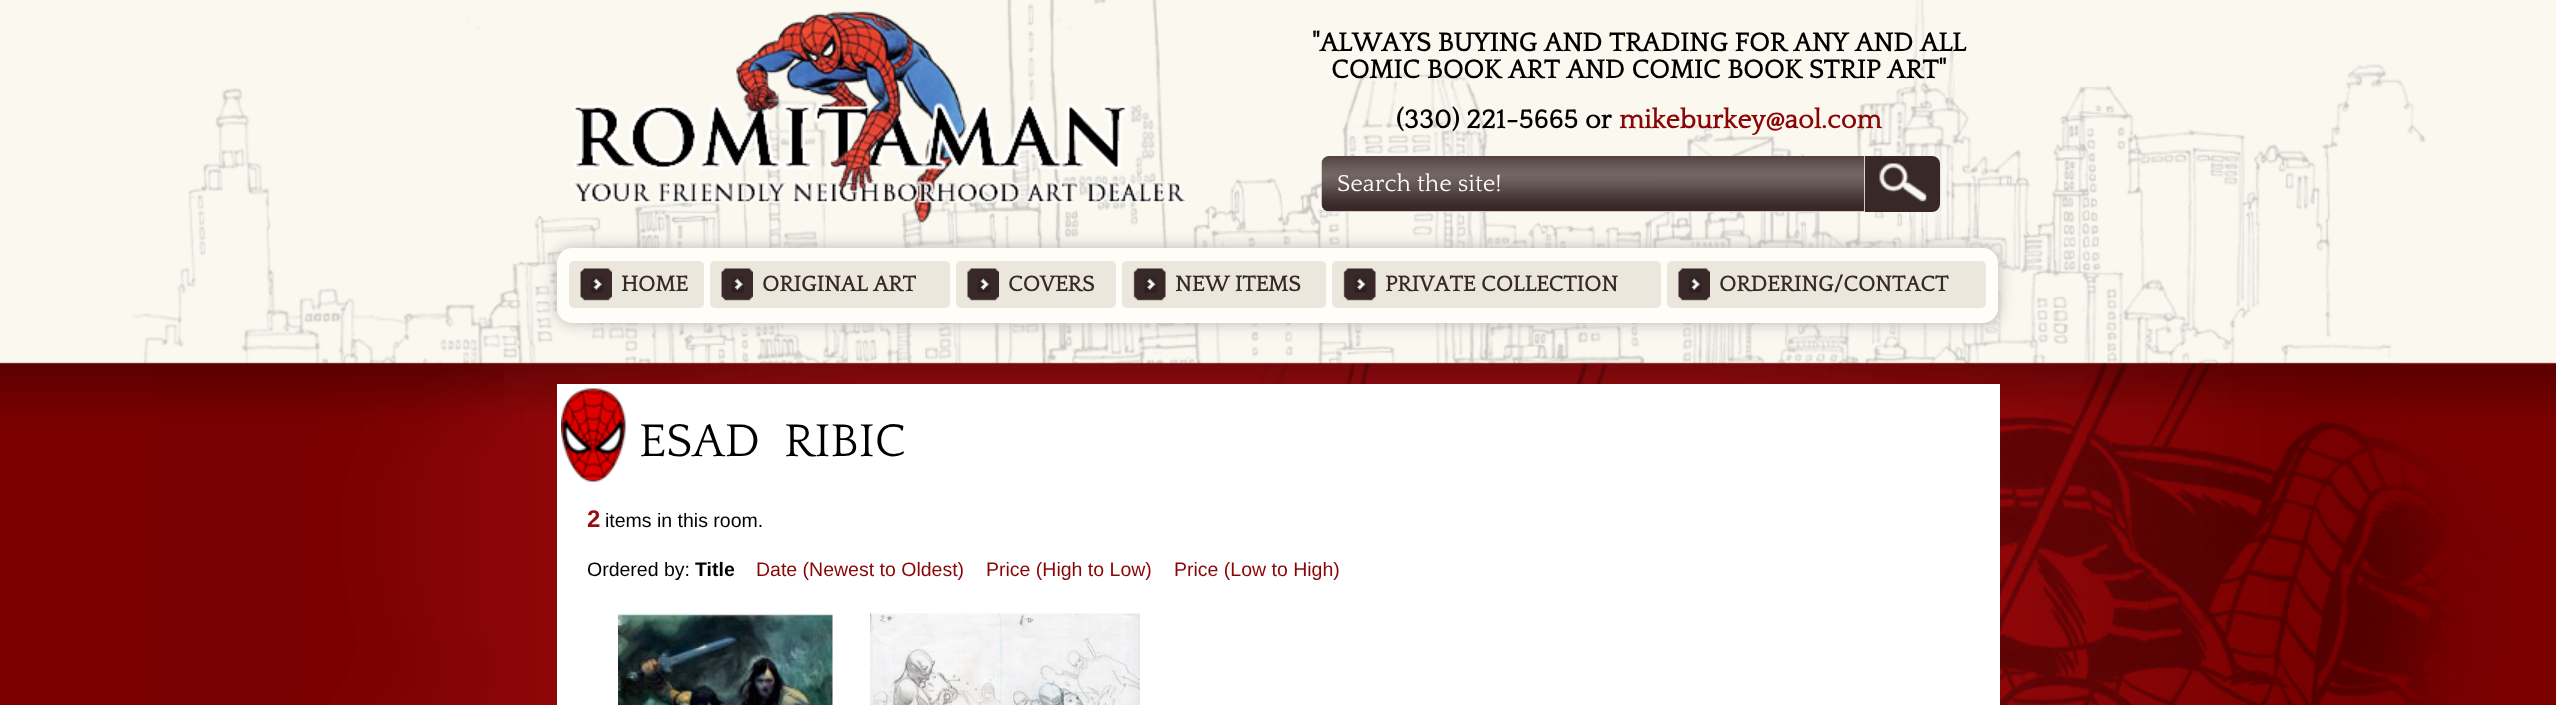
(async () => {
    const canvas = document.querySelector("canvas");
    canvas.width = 2556;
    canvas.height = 705;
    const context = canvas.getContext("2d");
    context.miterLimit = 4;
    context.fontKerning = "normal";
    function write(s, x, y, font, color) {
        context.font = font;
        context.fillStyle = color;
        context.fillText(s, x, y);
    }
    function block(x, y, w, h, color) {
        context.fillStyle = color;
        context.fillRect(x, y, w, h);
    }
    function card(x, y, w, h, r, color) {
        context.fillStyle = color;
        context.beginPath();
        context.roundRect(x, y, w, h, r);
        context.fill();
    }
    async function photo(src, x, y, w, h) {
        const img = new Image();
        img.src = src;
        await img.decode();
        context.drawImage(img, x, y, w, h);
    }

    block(0, 0, 2556, 705, "rgb(255, 255, 255)");
    await photo("media/1.png", 0, 0, 2556, 705);
    await photo("media/2.png", 571, 11, 616, 212);
    write("\"ALWAYS BUYING AND TRADING FOR ANY AND ALL", 1312, 51, "bold 27px Quattrocento", "rgb(0, 0, 0)");
    write("COMIC BOOK ART AND COMIC BOOK STRIP ART\"", 1331, 78, "bold 27px Quattrocento", "rgb(0, 0, 0)");
    write("(330) 221-5665 or", 1396, 128, "bold 27px Quattrocento", "rgb(0, 0, 0)");
    write("mikeburkey@aol.com", 1619, 128, "bold 27px Quattrocento", "rgb(137, 5, 6)");
    context.fillStyle = "rgb(255, 255, 255)";
    context.beginPath();
    context.roundRect(1322, 156, 543, 56, [8, 0, 0, 8]);
    context.fill();
    await photo("media/3.png", 1321, 156, 544, 56);
    write("Search the site!", 1337, 191, "24px Quattrocento", "rgb(254, 253, 248)");
    context.fillStyle = "rgb(56, 40, 40)";
    context.beginPath();
    context.roundRect(1865, 156, 75, 56, [0, 8, 8, 0]);
    context.fill();
    await photo("media/4.png", 1879, 163, 48, 39);
    context.fillStyle = "rgb(183, 183, 183)";
    context.filter = "blur(7.5px)";
    context.beginPath();
    context.roundRect(557, 248, 1441, 75, 15);
    context.fill();
    context.filter = "none";
    card(557, 248, 1441, 75, 15, "rgb(254, 253, 248)");
    card(569, 261, 135, 47, 5, "rgb(236, 231, 221)");
    await photo("media/5.png", 580, 268, 32, 33);
    write("HOME", 621, 291, "bold 22.5px Quattrocento", "rgb(56, 40, 40)");
    card(710, 261, 240, 47, 5, "rgb(236, 231, 221)");
    await photo("media/5.png", 721, 268, 32, 33);
    write("ORIGINAL ART", 762, 291, "bold 22.5px Quattrocento", "rgb(56, 40, 40)");
    card(956, 261, 160, 47, 5, "rgb(236, 231, 221)");
    await photo("media/6.png", 967, 268, 32, 33);
    write("COVERS", 1008, 291, "bold 22.5px Quattrocento", "rgb(56, 40, 40)");
    card(1122, 261, 204, 47, 5, "rgb(236, 231, 221)");
    await photo("media/7.png", 1133, 268, 33, 33);
    write("NEW ITEMS", 1175, 291, "bold 22.5px Quattrocento", "rgb(56, 40, 40)");
    card(1332, 261, 329, 47, 5, "rgb(236, 231, 221)");
    await photo("media/7.png", 1343, 268, 33, 33);
    write("PRIVATE COLLECTION", 1385, 291, "bold 22.5px Quattrocento", "rgb(56, 40, 40)");
    card(1667, 261, 319, 47, 5, "rgb(236, 231, 221)");
    await photo("media/6.png", 1678, 268, 32, 33);
    write("ORDERING/CONTACT", 1719, 291, "bold 22.5px Quattrocento", "rgb(56, 40, 40)");
    block(557, 384, 1443, 321, "rgb(255, 255, 255)");
    await photo("media/8.png", 561, 388, 65, 94);
    write("ESAD", 639, 456, "48px Quattrocento", "rgb(0, 0, 0)");
    write("RIBIC", 784, 456, "48px Quattrocento", "rgb(0, 0, 0)");
    write("2", 587, 527, "bold 24px Liberation Sans", "rgb(154, 11, 15)");
    write("items in this room.", 605, 527, "19.5px Liberation Sans", "rgb(0, 0, 0)");
    write("Ordered by:", 587, 576, "19.5px Liberation Sans", "rgb(0, 0, 0)");
    write("Title", 695, 576, "bold 19.5px Liberation Sans", "rgb(0, 0, 0)");
    write("Date (Newest to Oldest)", 756, 576, "19.5px Liberation Sans", "rgb(137, 5, 6)");
    write("Price (High to Low)", 986, 576, "19.5px Liberation Sans", "rgb(137, 5, 6)");
    write("Price (Low to High)", 1174, 576, "19.5px Liberation Sans", "rgb(137, 5, 6)");
    await photo("media/9.png", 618, 613, 215, 92);
    await photo("media/10.png", 870, 613, 270, 92);
})();
